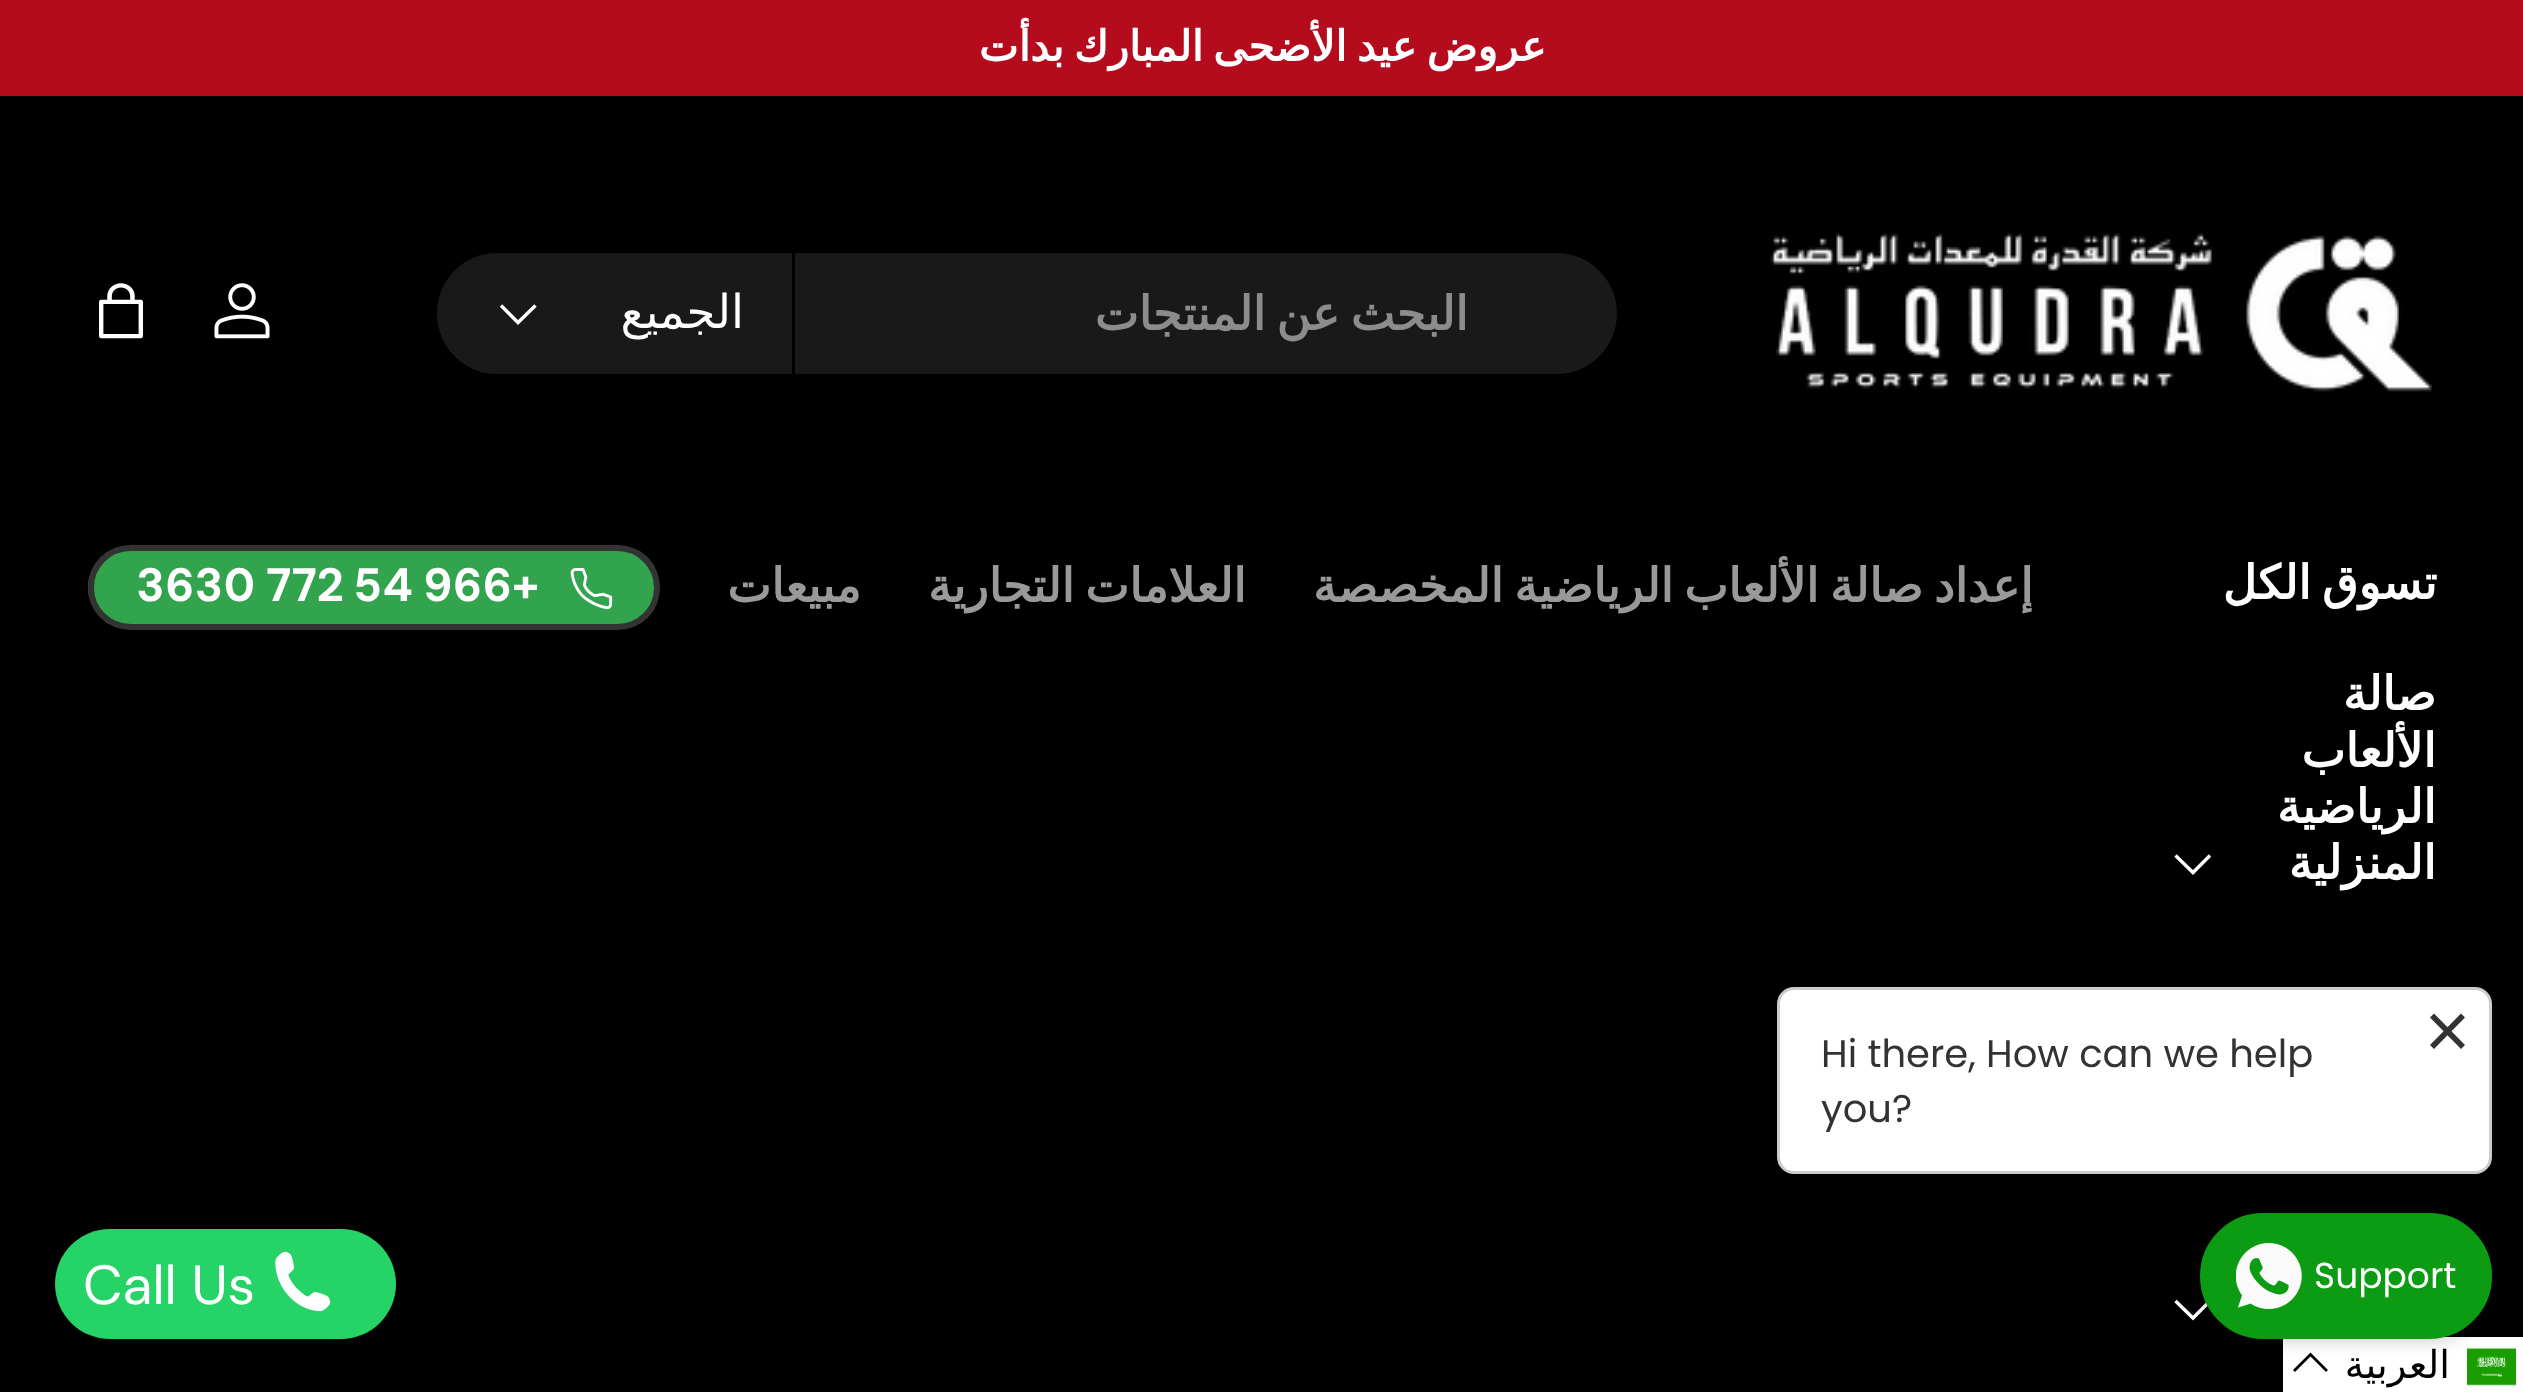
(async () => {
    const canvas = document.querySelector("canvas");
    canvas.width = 2523;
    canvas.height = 1392;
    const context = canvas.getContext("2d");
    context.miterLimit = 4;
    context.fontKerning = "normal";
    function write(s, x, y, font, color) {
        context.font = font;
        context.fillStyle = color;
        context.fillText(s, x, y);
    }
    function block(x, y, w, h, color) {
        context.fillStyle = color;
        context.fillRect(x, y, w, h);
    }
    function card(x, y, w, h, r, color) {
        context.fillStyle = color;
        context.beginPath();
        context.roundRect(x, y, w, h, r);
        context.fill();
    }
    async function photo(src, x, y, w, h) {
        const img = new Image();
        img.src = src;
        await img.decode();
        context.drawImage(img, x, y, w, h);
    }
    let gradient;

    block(0, 0, 2523, 1392, "rgb(0, 0, 0)");
    block(0, 0, 2523, 96, "rgb(180, 12, 28)");
    context.wordSpacing = "-3.5px";
    context.direction = "rtl";
    write("عروض عيد الأضحى المبارك بدأت", 1546, 61, "bold 42.1px DejaVu Sans", "rgb(255, 255, 255)");
    await photo("media/1.png", 1770, 233, 662, 159);
    card(437, 253, 1180, 121, 60.5, "rgb(25, 25, 25)");
    context.wordSpacing = "-4px";
    write("البحث عن المنتجات", 1468, 330, "bold 46.75px DejaVu Sans", "rgb(140, 140, 140)");
    context.fillStyle = "rgb(25, 25, 25)";
    context.beginPath();
    context.roundRect(437, 253, 358, 121, [60.5, 0, 0, 60.5]);
    context.fill();
    block(792, 253, 3, 121, "rgb(0, 0, 0)");
    context.wordSpacing = "0px";
    write("الجميع", 744, 328, "46.75px DejaVu Sans", "rgb(255, 255, 255)");
    context.beginPath();
    context.moveTo(535.5, 305.5);
    context.lineTo(518, 322.5);
    context.lineTo(501, 305.5);
    context.strokeStyle = "rgb(255, 255, 255)";
    context.lineWidth = 3.4;
    context.stroke();
    await photo("media/2.png", 214, 283, 56, 56);
    await photo("media/3.png", 99, 283, 44, 56);
    context.wordSpacing = "-4px";
    write("تسوق الكل", 2437, 599, "bold 46.75px DejaVu Sans", "rgb(255, 255, 255)");
    context.wordSpacing = "0px";
    write("صالة", 2436, 710, "bold 46.75px DejaVu Sans", "rgb(255, 255, 255)");
    write("الألعاب", 2436, 767, "bold 46.75px DejaVu Sans", "rgb(255, 255, 255)");
    write("الرياضية", 2436, 823, "bold 46.75px DejaVu Sans", "rgb(255, 255, 255)");
    write("المنزلية", 2436, 879, "bold 46.75px DejaVu Sans", "rgb(255, 255, 255)");
    context.beginPath();
    context.moveTo(2210, 855.5);
    context.lineTo(2193, 872.5);
    context.lineTo(2175.5, 855.5);
    context.stroke();
    context.beginPath();
    context.moveTo(2210, 1301);
    context.lineTo(2193, 1318);
    context.lineTo(2175.5, 1301);
    context.stroke();
    context.wordSpacing = "-4px";
    write("إعداد صالة الألعاب الرياضية المخصصة", 2033, 602, "bold 46.75px DejaVu Sans", "rgb(153, 153, 153)");
    write("العلامات التجارية", 1246, 602, "bold 46.75px DejaVu Sans", "rgb(153, 153, 153)");
    context.wordSpacing = "0px";
    write("مبيعات", 861, 602, "bold 46.75px DejaVu Sans", "rgb(153, 153, 153)");
    context.save();
    context.beginPath();
    context.roundRect(88, 545, 572, 85, 42.5);
    context.clip();
    gradient = context.createLinearGradient(-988, 387, 614, 787);
    gradient.addColorStop(0.6, "rgb(92, 183, 113)");
    gradient.addColorStop(0.6, "rgb(50, 164, 77)");
    gradient.addColorStop(1, "rgb(50, 164, 77)");
    context.fillStyle = gradient;
    context.fillRect(88, 550, 567, 74);
    context.restore();
    context.beginPath();
    context.roundRect(91, 548, 566, 79, 39.5);
    context.strokeStyle = "rgb(51, 51, 51)";
    context.lineWidth = 6;
    context.stroke();
    await photo("media/4.png", 570, 568, 43, 42);
    context.direction = "ltr";
    write("966+", 423, 601, "bold 46.75px DM Sans", "rgb(255, 255, 255)");
    write("54", 353, 601, "bold 46.75px DM Sans", "rgb(255, 255, 255)");
    write("772", 266, 601, "bold 46.75px DM Sans", "rgb(255, 255, 255)");
    write("3630", 136, 601, "bold 46.75px DM Sans", "rgb(255, 255, 255)");
    context.beginPath();
    context.roundRect(1778.5, 988.5, 712, 184, 15.5);
    context.fill();
    context.strokeStyle = "rgb(204, 204, 204)";
    context.lineWidth = 3;
    context.stroke();
    context.fillStyle = "rgb(51, 51, 51)";
    context.beginPath();
    context.moveTo(2434, 1013.5);
    context.lineTo(2465, 1045);
    context.lineTo(2461, 1049);
    context.lineTo(2430, 1017.5);
    context.closePath();
    context.fill();
    context.beginPath();
    context.moveTo(2461, 1013.5);
    context.lineTo(2465, 1017.5);
    context.lineTo(2434, 1049);
    context.lineTo(2430, 1045);
    context.closePath();
    context.fill();
    write("Hi there, How can we help", 1821, 1067, "38.5px Poppins", "rgb(51, 51, 51)");
    write("you?", 1821, 1122, "38.5px Poppins", "rgb(51, 51, 51)");
    block(2283, 1337, 240, 55, "rgb(255, 255, 255)");
    await photo("media/7.png", 2467, 1347, 49, 39);
    context.beginPath();
    context.moveTo(2327, 1371);
    context.lineTo(2310.5, 1354.5);
    context.lineTo(2294, 1371);
    context.strokeStyle = "rgb(0, 0, 0)";
    context.lineWidth = 2.8;
    context.stroke();
    context.fillStyle = "rgba(27, 27, 27, 0.2)";
    context.filter = "blur(8px)";
    context.beginPath();
    context.roundRect(2200, 1216, 292, 126, 63);
    context.fill();
    context.filter = "none";
    context.fillStyle = "rgb(12, 156, 19)";
    context.beginPath();
    context.roundRect(2201.5, 1214.5, 289, 123, 61.5);
    context.fill();
    context.strokeStyle = "rgb(12, 156, 19)";
    context.lineWidth = 3;
    context.stroke();
    write("Support", 2314, 1288, "36px Poppins", "rgb(255, 255, 255)");
    await photo("media/5.png", 2236, 1243, 66, 66);
    card(55, 1229, 341, 110, 55, "rgb(37, 211, 102)");
    await photo("media/6.png", 275, 1251, 56, 61);
    write("Call Us", 83, 1304, "55px DM Sans", "rgb(255, 255, 255)");
    context.direction = "rtl";
    write("العربية", 2450, 1378, "38.5px DejaVu Sans", "rgb(0, 0, 0)");
})();
